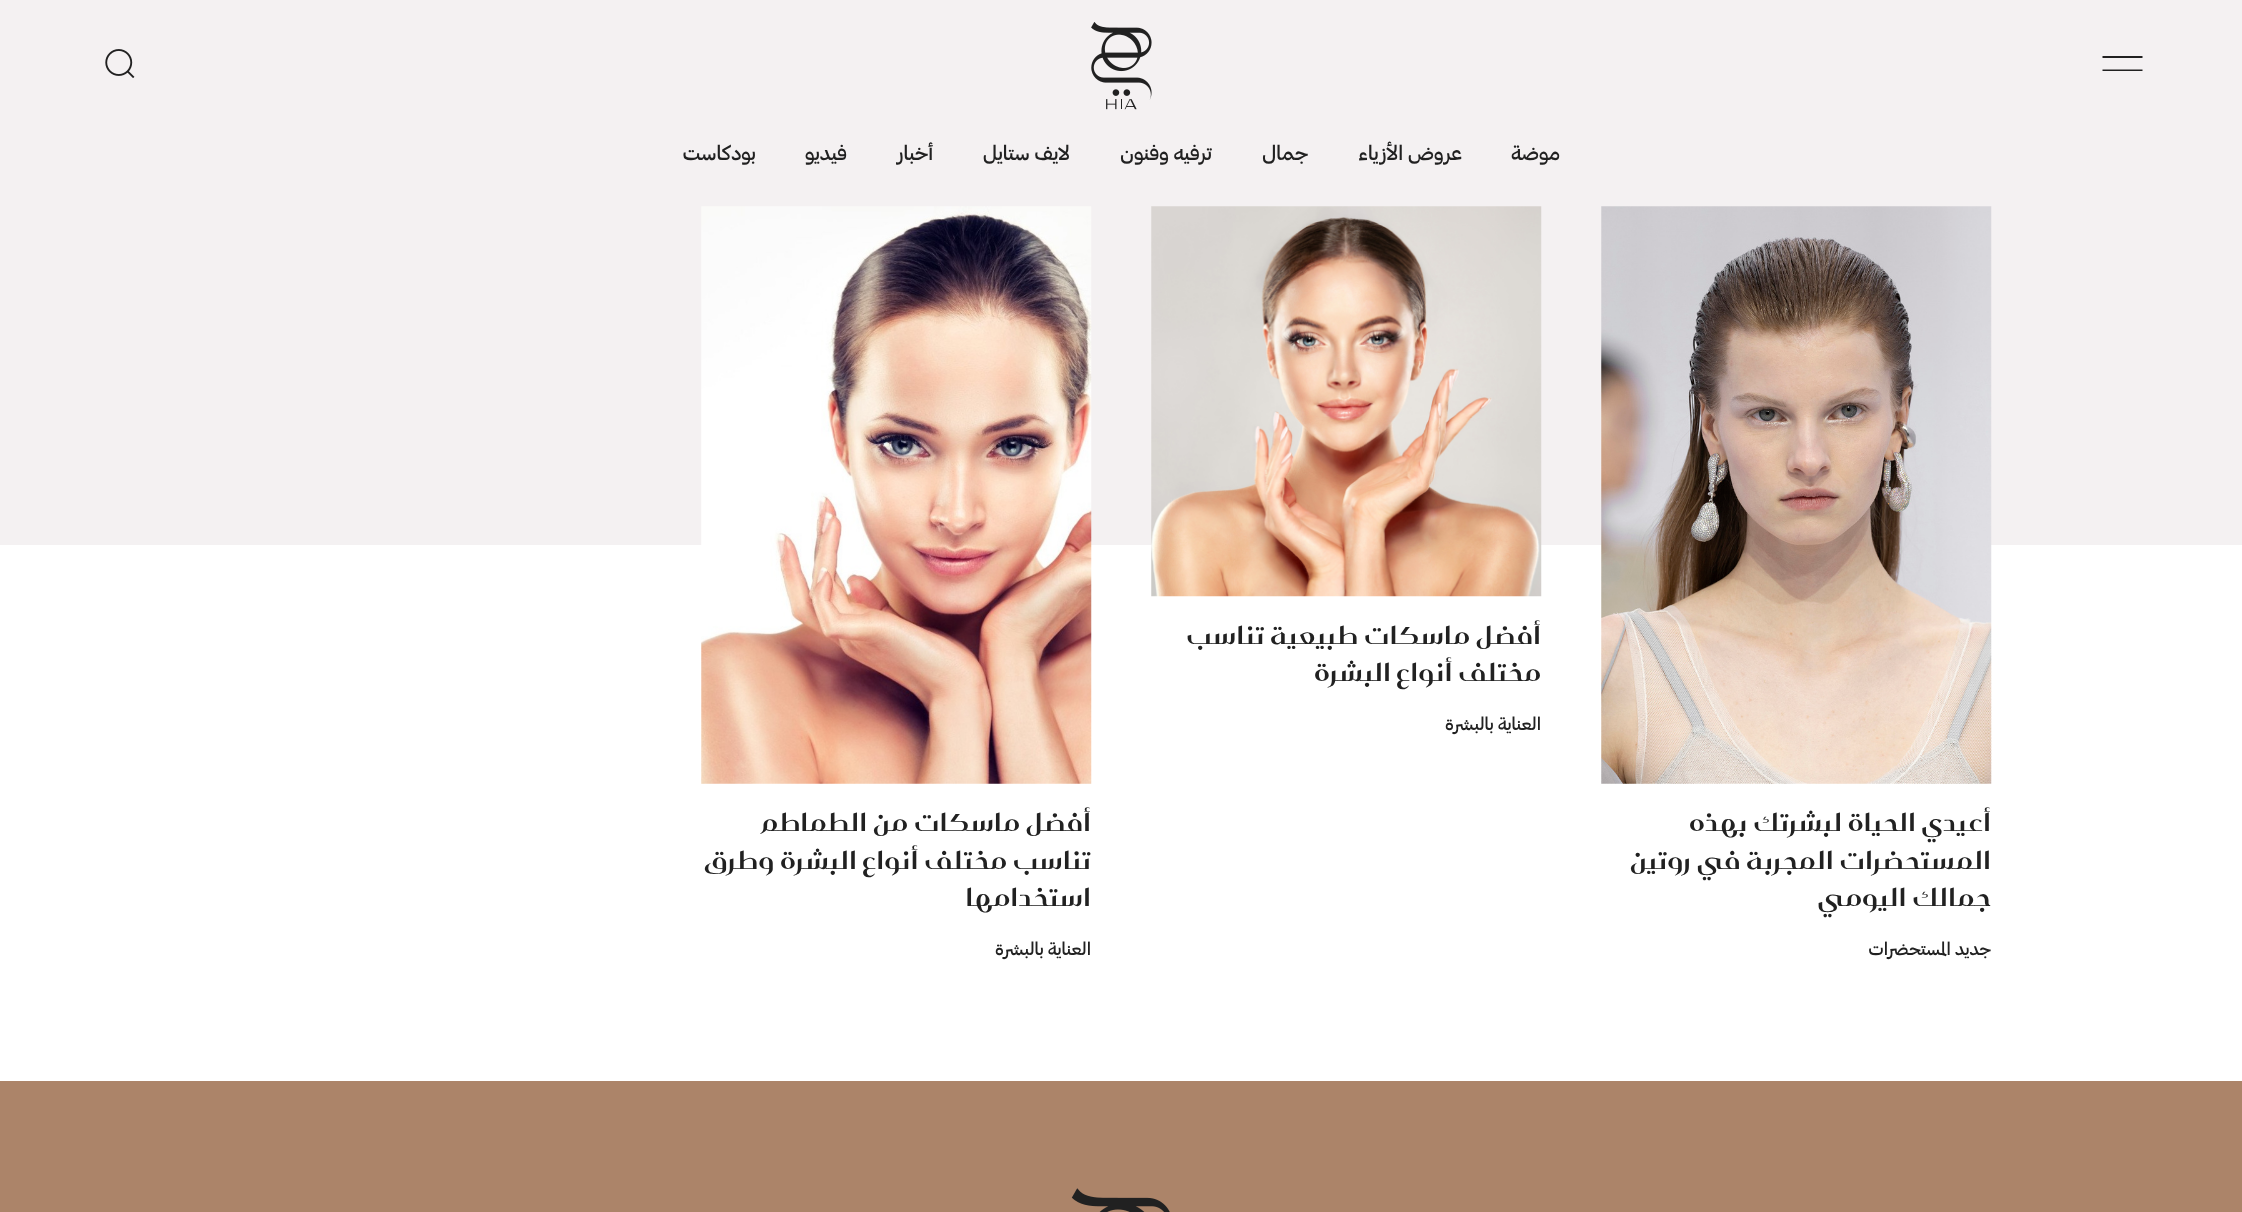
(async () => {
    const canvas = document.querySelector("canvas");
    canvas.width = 2242;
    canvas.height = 1212;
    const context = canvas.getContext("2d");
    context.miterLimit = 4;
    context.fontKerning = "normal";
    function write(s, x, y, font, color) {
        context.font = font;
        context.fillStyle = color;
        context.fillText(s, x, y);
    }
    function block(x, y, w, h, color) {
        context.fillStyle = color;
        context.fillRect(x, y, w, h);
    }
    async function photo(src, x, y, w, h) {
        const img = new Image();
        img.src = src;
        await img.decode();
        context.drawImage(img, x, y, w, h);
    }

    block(0, 0, 2242, 1212, "rgb(255, 255, 255)");
    block(0, 0, 2242, 545, "rgb(244, 241, 242)");
    context.fillStyle = "rgb(33, 33, 33)";
    context.beginPath();
    context.moveTo(2102.5, 56);
    context.lineTo(2142.5, 56);
    context.lineTo(2142.5, 58);
    context.lineTo(2102.5, 58);
    context.closePath();
    context.moveTo(2102.5, 69.5);
    context.lineTo(2142.5, 69.5);
    context.lineTo(2142.5, 71);
    context.lineTo(2102.5, 71);
    context.closePath();
    context.fill();
    await photo("media/1.png", 1091, 22, 61, 88);
    await photo("media/2.png", 105, 49, 30, 29);
    context.direction = "rtl";
    write("موضة", 1560, 160, "500 20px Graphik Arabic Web", "rgb(33, 33, 33)");
    write("عروض الأزياء", 1462, 160, "500 20px Graphik Arabic Web", "rgb(33, 33, 33)");
    write("جمال", 1308, 160, "500 20px Graphik Arabic Web", "rgb(33, 33, 33)");
    write("ترفيه وفنون", 1212, 160, "500 20px Graphik Arabic Web", "rgb(33, 33, 33)");
    write("لايف ستايل", 1070, 160, "500 20px Graphik Arabic Web", "rgb(33, 33, 33)");
    write("أخبار", 933, 160, "500 20px Graphik Arabic Web", "rgb(33, 33, 33)");
    write("فيديو", 847, 160, "500 20px Graphik Arabic Web", "rgb(33, 33, 33)");
    write("بودكاست", 756, 160, "500 20px Graphik Arabic Web", "rgb(33, 33, 33)");
    await photo("media/3.png", 1151, 206, 391, 391);
    write("أفضل ماسكات طبيعية تناسب", 1541, 644, "bold 25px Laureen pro", "rgb(33, 33, 33)");
    write("مختلف أنواع البشرة", 1541, 681, "bold 25px Laureen pro", "rgb(33, 33, 33)");
    write("العناية بالبشرة", 1541, 730, "500 17.5px Graphik Arabic Web", "rgb(33, 33, 33)");
    await photo("media/4.png", 1601, 206, 391, 578);
    write("أعيدي الحياة لبشرتك بهذه", 1991, 831, "bold 25px Laureen pro", "rgb(33, 33, 33)");
    write("المستحضرات المجربة في روتين", 1991, 869, "bold 25px Laureen pro", "rgb(33, 33, 33)");
    write("جمالك اليومي", 1991, 906, "bold 25px Laureen pro", "rgb(33, 33, 33)");
    write("جديد المستحضرات", 1991, 955, "500 17.5px Graphik Arabic Web", "rgb(33, 33, 33)");
    await photo("media/5.png", 701, 206, 391, 578);
    write("أفضل ماسكات من الطماطم", 1091, 831, "bold 25px Laureen pro", "rgb(33, 33, 33)");
    write("تناسب مختلف أنواع البشرة وطرق", 1091, 869, "bold 25px Laureen pro", "rgb(33, 33, 33)");
    write("استخدامها", 1091, 906, "bold 25px Laureen pro", "rgb(33, 33, 33)");
    write("العناية بالبشرة", 1091, 955, "500 17.5px Graphik Arabic Web", "rgb(33, 33, 33)");
    block(0, 1081, 2242, 131, "rgb(172, 132, 105)");
    await photo("media/6.png", 1071, 1188, 99, 24);
})();
